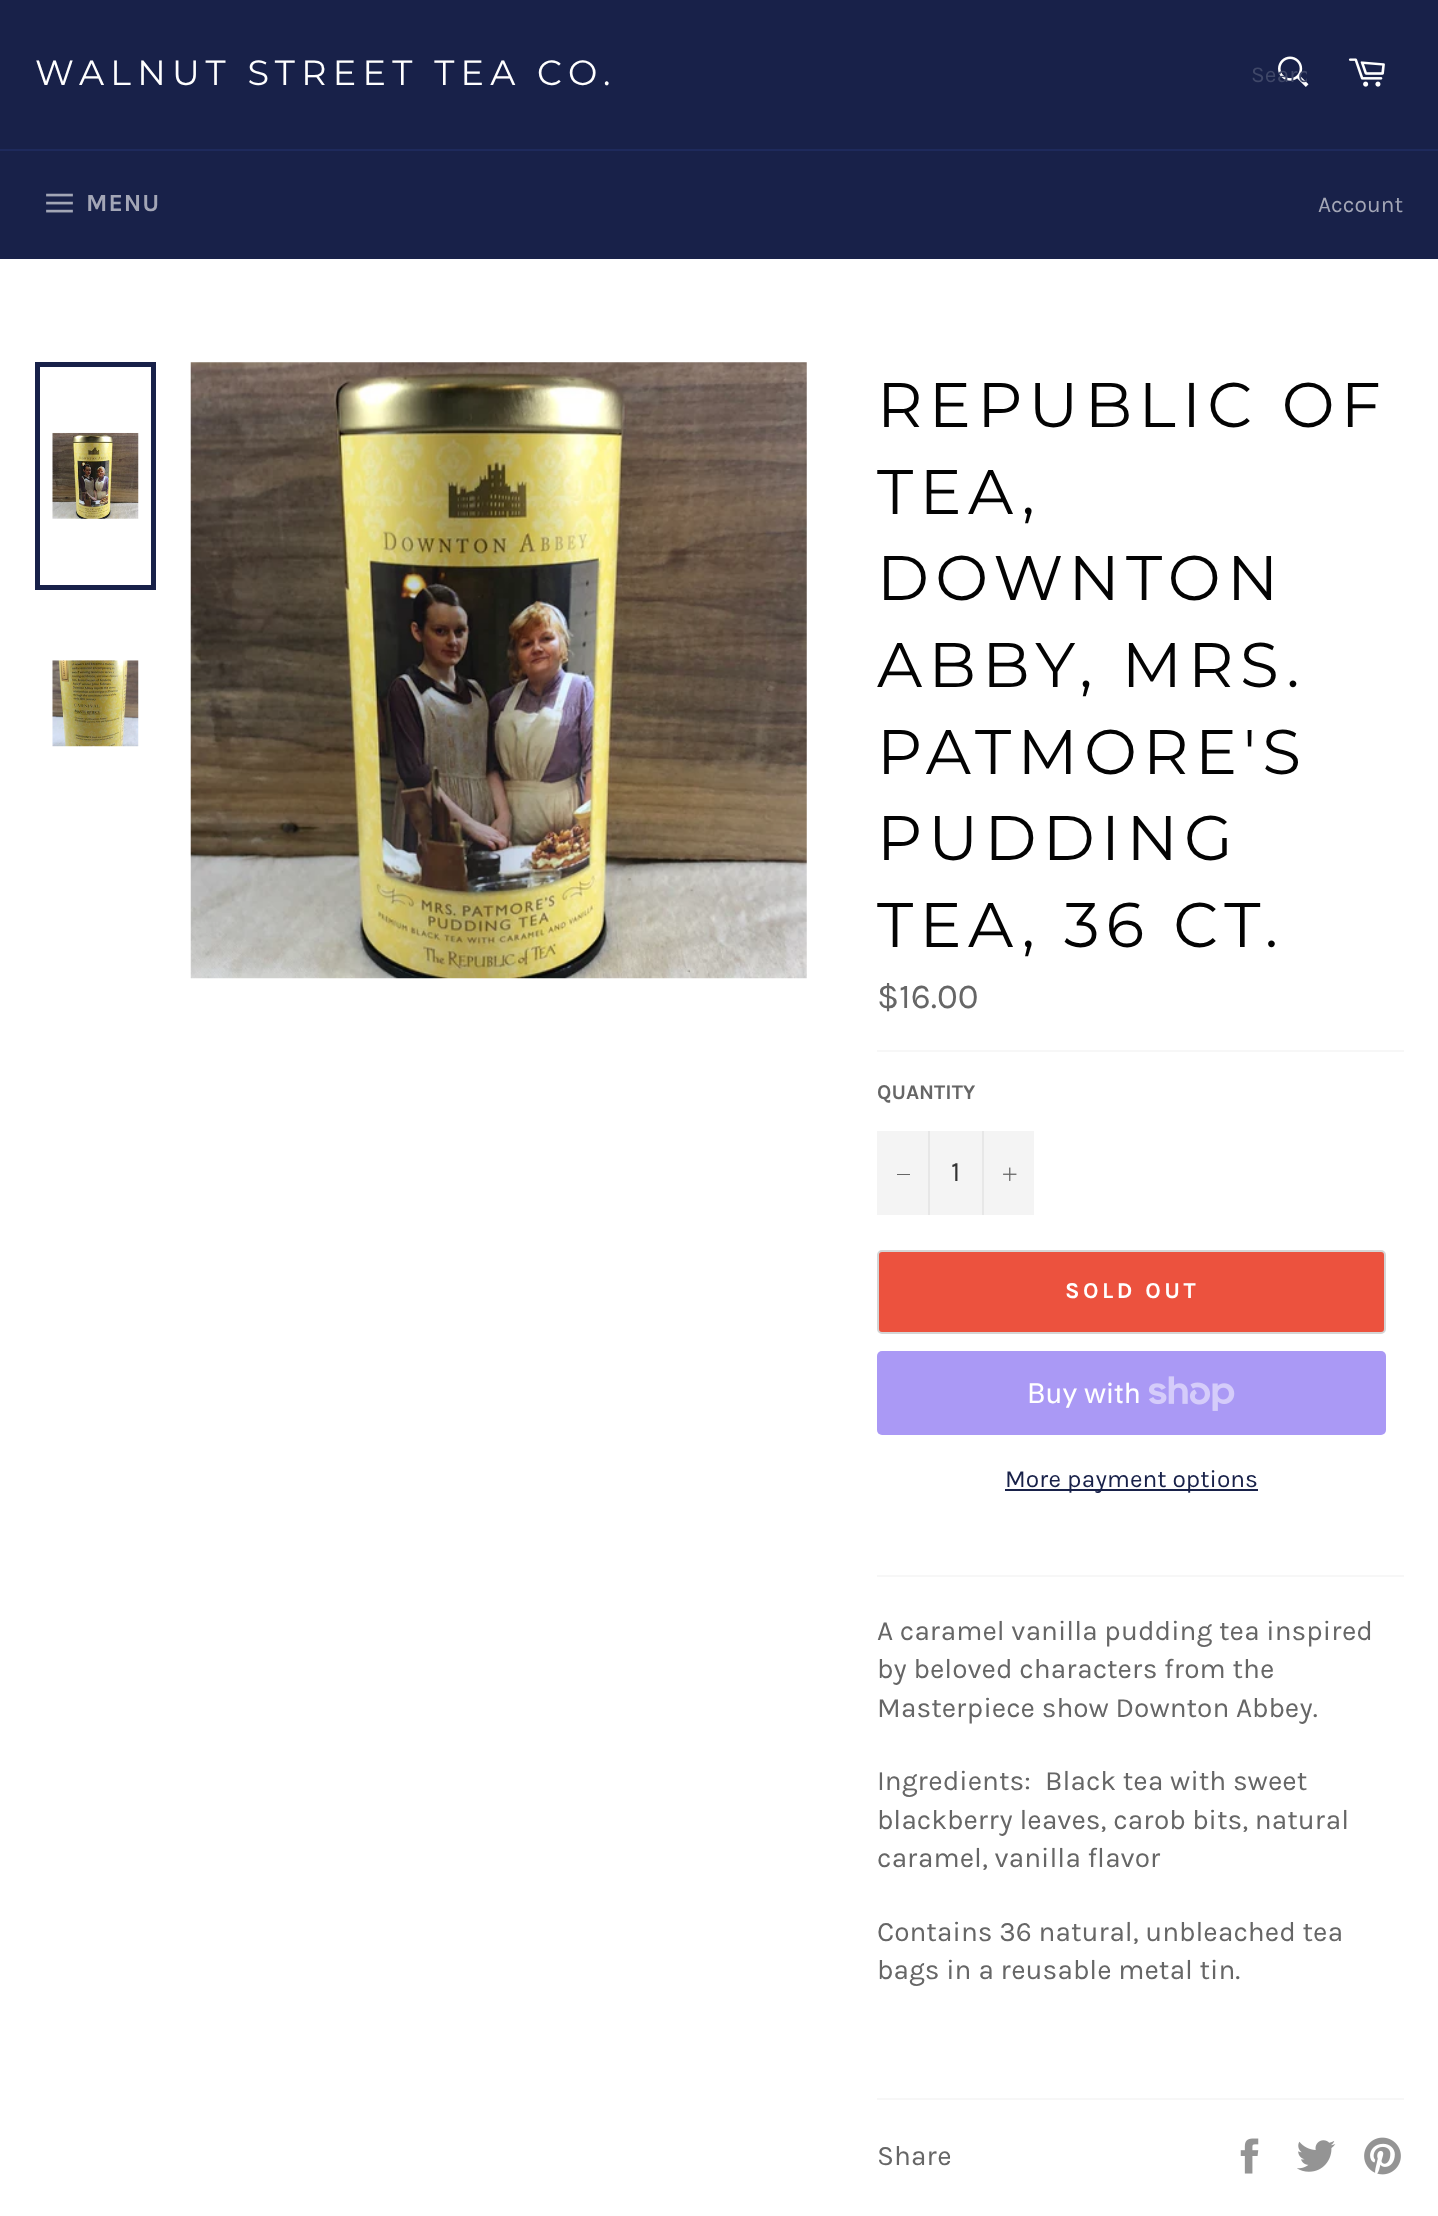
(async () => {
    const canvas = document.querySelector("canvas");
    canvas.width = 1438;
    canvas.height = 2216;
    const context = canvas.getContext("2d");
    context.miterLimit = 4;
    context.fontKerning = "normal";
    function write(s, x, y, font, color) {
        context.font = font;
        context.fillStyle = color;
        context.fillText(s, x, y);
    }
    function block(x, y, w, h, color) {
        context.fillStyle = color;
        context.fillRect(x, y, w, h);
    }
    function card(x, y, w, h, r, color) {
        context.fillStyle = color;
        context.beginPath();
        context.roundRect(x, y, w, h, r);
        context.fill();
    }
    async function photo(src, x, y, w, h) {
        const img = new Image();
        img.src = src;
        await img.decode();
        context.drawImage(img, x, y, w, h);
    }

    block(0, 0, 1438, 2216, "rgb(24, 33, 73)");
    context.letterSpacing = "6.3px";
    write("WALNUT STREET TEA CO.", 35, 85, "35px Montserrat", "rgb(255, 255, 255)");
    await photo("media/1.png", 1278, 56, 31, 31);
    context.save();
    context.beginPath();
    context.rect(1251, 61, 56, 27);
    context.clip();
    context.letterSpacing = "0px";
    write("Searc", 1251, 82, "22.75px Karla", "rgb(63, 71, 104)");
    context.restore();
    await photo("media/2.png", 1348, 58, 37, 29);
    block(0, 149, 1438, 2, "rgb(30, 42, 92)");
    await photo("media/3.png", 46, 193, 27, 20);
    context.letterSpacing = "1px";
    write("MENU", 86, 211, "bold 24.5px Karla", "rgb(163, 166, 182)");
    context.letterSpacing = "0px";
    write("Account", 1318, 212, "22.75px Karla", "rgb(163, 166, 182)");
    block(0, 259, 1438, 1957, "rgb(255, 255, 255)");
    await photo("media/4.png", 52, 432, 87, 87);
    context.strokeStyle = "rgb(24, 33, 73)";
    context.lineWidth = 5;
    context.strokeRect(37.5, 364.5, 116, 223);
    await photo("media/5.png", 52, 660, 87, 87);
    await photo("media/6.png", 190, 362, 617, 617);
    context.letterSpacing = "6.3px";
    write("REPUBLIC OF", 877, 427, "63px Montserrat", "rgb(3, 3, 3)");
    write("TEA,", 877, 514, "63px Montserrat", "rgb(3, 3, 3)");
    write("DOWNTON", 877, 600, "63px Montserrat", "rgb(3, 3, 3)");
    write("ABBY, MRS.", 877, 687, "63px Montserrat", "rgb(3, 3, 3)");
    write("PATMORE'S", 877, 774, "63px Montserrat", "rgb(3, 3, 3)");
    write("PUDDING", 877, 860, "63px Montserrat", "rgb(3, 3, 3)");
    write("TEA, 36 CT.", 877, 947, "63px Montserrat", "rgb(3, 3, 3)");
    context.letterSpacing = "0px";
    write("$16.00", 877, 1008, "35px Karla", "rgb(102, 102, 102)");
    block(877, 1050, 527, 2, "rgb(247, 247, 247)");
    write("QUANTITY", 877, 1099, "bold 21px Karla", "rgb(102, 102, 102)");
    block(877, 1131, 157, 84, "rgb(244, 244, 244)");
    block(928, 1131, 2, 84, "rgb(231, 231, 231)");
    block(897, 1174, 13, 1, "rgb(102, 102, 102)");
    write("1", 951, 1181, "28px Karla", "rgb(51, 51, 51)");
    block(982, 1131, 2, 84, "rgb(231, 231, 231)");
    await photo("media/7.png", 1003, 1167, 14, 14);
    context.fillStyle = "rgb(236, 82, 62)";
    context.beginPath();
    context.roundRect(878, 1251, 507, 82, 4);
    context.fill();
    context.strokeStyle = "rgb(213, 213, 213)";
    context.lineWidth = 2;
    context.stroke();
    context.letterSpacing = "3.5px";
    write("SOLD OUT", 1065, 1298, "bold 22.75px Karla", "rgb(255, 255, 255)");
    card(877, 1351, 509, 84, 5, "rgb(170, 153, 245)");
    context.letterSpacing = "0px";
    write("Buy with", 1027, 1403, "28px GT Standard", "rgb(255, 255, 255)");
    await photo("media/8.png", 1149, 1376, 86, 35);
    block(1005, 1489, 253, 2, "rgb(24, 33, 73)");
    write("More payment options", 1005, 1487, "24.5px Karla", "rgb(24, 33, 73)");
    block(877, 1575, 527, 2, "rgb(247, 247, 247)");
    write("A caramel vanilla pudding tea inspired", 877, 1640, "28px Karla", "rgb(102, 102, 102)");
    write("by beloved characters from the", 877, 1678, "28px Karla", "rgb(102, 102, 102)");
    write("Masterpiece show Downton Abbey.", 877, 1717, "28px Karla", "rgb(102, 102, 102)");
    write("Ingredients:", 877, 1790, "28px Karla", "rgb(102, 102, 102)");
    write("Black tea with sweet", 1045, 1790, "28px Karla", "rgb(102, 102, 102)");
    write("blackberry leaves, carob bits, natural", 877, 1829, "28px Karla", "rgb(102, 102, 102)");
    write("caramel, vanilla flavor", 877, 1867, "28px Karla", "rgb(102, 102, 102)");
    write("Contains 36 natural, unbleached tea", 877, 1941, "28px Karla", "rgb(102, 102, 102)");
    write("bags in a reusable metal tin.", 877, 1979, "28px Karla", "rgb(102, 102, 102)");
    block(877, 2098, 527, 2, "rgb(247, 247, 247)");
    write("Share", 877, 2165, "28px Karla", "rgb(102, 102, 102)");
    await photo("media/9.png", 1240, 2138, 19, 36);
    await photo("media/10.png", 1297, 2140, 39, 32);
    await photo("media/11.png", 1364, 2137, 37, 38);
})();
